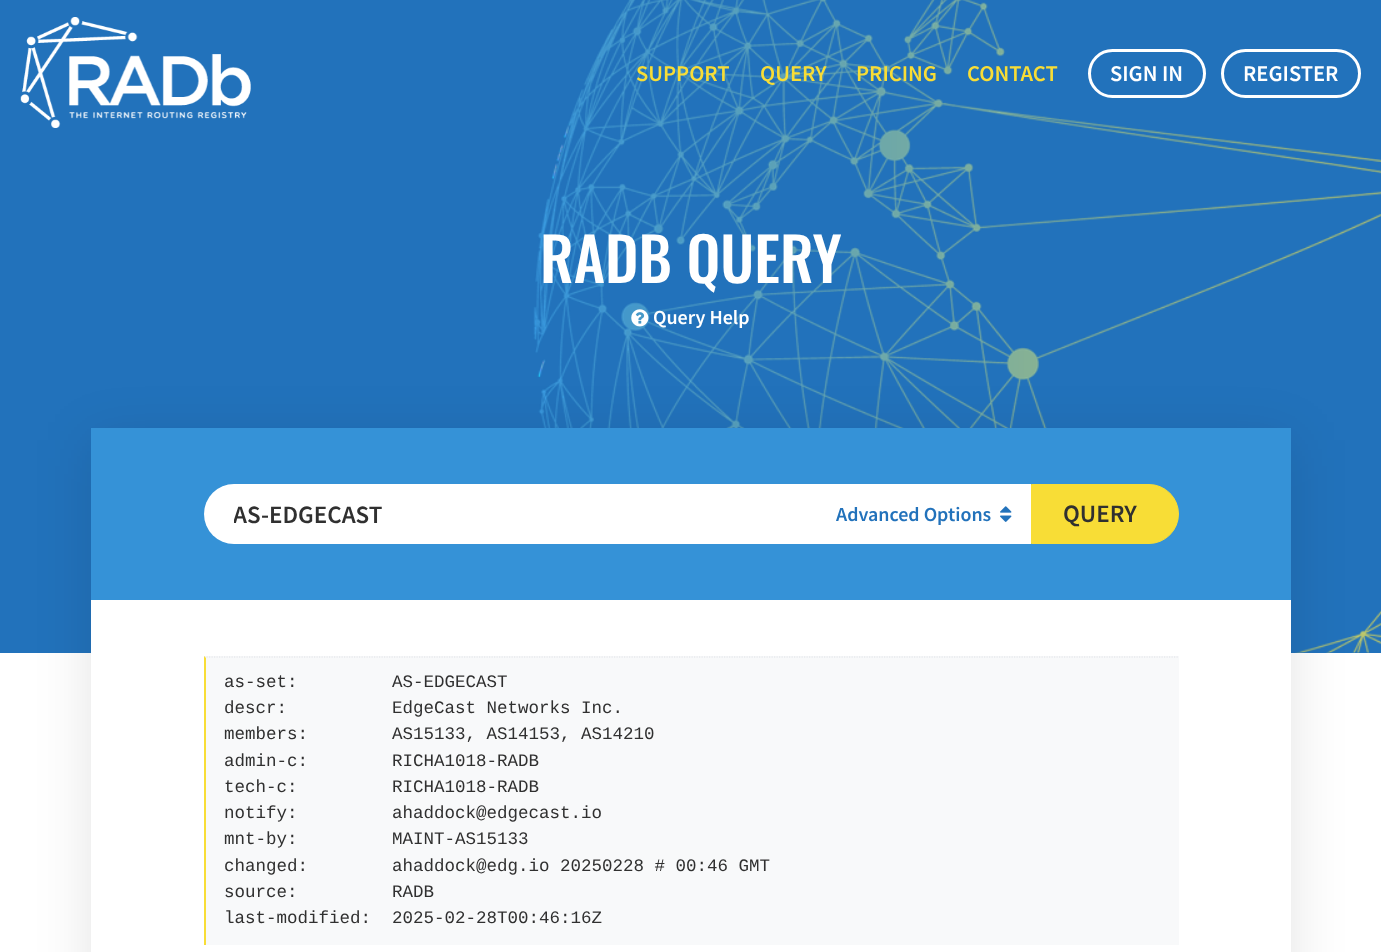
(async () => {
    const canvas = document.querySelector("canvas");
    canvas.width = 1381;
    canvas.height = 952;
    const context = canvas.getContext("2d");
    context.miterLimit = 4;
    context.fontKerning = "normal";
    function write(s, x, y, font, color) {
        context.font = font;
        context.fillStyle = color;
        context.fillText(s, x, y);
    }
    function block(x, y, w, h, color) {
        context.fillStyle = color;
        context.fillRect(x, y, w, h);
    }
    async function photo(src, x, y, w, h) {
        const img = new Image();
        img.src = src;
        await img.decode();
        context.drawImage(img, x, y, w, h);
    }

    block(0, 0, 1381, 952, "rgb(255, 255, 255)");
    block(0, 0, 1381, 653, "rgb(34, 114, 187)");
    await photo("media/1.png", 20, 17, 231, 111);
    await photo("media/2.png", 533, 0, 848, 653);
    write("SUPPORT", 636, 81, "600 22.5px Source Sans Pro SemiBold", "rgb(248, 221, 54)");
    write("QUERY", 760, 81, "600 22.5px Source Sans Pro SemiBold", "rgb(248, 221, 54)");
    write("PRICING", 856, 81, "600 22.5px Source Sans Pro SemiBold", "rgb(248, 221, 54)");
    write("CONTACT", 967, 81, "600 22.5px Source Sans Pro SemiBold", "rgb(248, 221, 54)");
    context.beginPath();
    context.roundRect(1089.5, 50.5, 115, 46, 23);
    context.strokeStyle = "rgb(255, 255, 255)";
    context.lineWidth = 3;
    context.stroke();
    write("SIGN IN", 1110, 81, "600 22.5px Source Sans Pro SemiBold", "rgb(255, 255, 255)");
    context.beginPath();
    context.roundRect(1222.5, 50.5, 137, 46, 23);
    context.stroke();
    write("REGISTER", 1243, 81, "600 22.5px Source Sans Pro SemiBold", "rgb(255, 255, 255)");
    write("RADB QUERY", 540, 283, "500 60px Oswald", "rgb(255, 255, 255)");
    await photo("media/3.png", 631, 309, 18, 18);
    write("Query Help", 653, 324, "600 20px Source Sans Pro SemiBold", "rgb(255, 255, 255)");
    context.fillStyle = "rgba(0, 0, 0, 0.11)";
    context.filter = "blur(27.5px)";
    context.beginPath();
    context.rect(91, 440, 1200, 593);
    context.fill();
    context.filter = "none";
    block(91, 600, 1200, 352, "rgb(255, 255, 255)");
    block(91, 428, 1200, 172, "rgb(53, 146, 215)");
    context.fillStyle = "rgb(255, 255, 255)";
    context.beginPath();
    context.roundRect(204, 484, 612, 60, [30, 0, 0, 30]);
    context.fill();
    context.save();
    context.beginPath();
    context.rect(234, 498, 552, 31);
    context.clip();
    write("AS-EDGECAST", 233, 523, "600 25px Source Sans Pro SemiBold", "rgb(48, 48, 48)");
    context.restore();
    block(816, 484, 215, 60, "rgb(255, 255, 255)");
    write("Advanced Options", 836, 521, "600 20px Source Sans Pro SemiBold", "rgb(34, 114, 187)");
    await photo("media/4.png", 1000, 506, 12, 16);
    context.fillStyle = "rgb(248, 221, 54)";
    context.beginPath();
    context.roundRect(1031.5, 484.5, 147, 59, [0, 29.5, 29.5, 0]);
    context.fill();
    context.strokeStyle = "rgb(248, 221, 54)";
    context.lineWidth = 1;
    context.stroke();
    write("QUERY", 1063, 522, "600 25px Source Sans Pro SemiBold", "rgb(48, 48, 48)");
    block(204, 656, 975, 289, "rgb(248, 249, 250)");
    context.beginPath();
    context.moveTo(204, 657);
    context.lineTo(1179, 657);
    context.strokeStyle = "rgb(222, 226, 230)";
    context.lineWidth = 1.2;
    context.setLineDash([1.25, 1.25]);
    context.stroke();
    context.fillStyle = "rgb(248, 221, 54)";
    context.beginPath();
    context.moveTo(204, 945);
    context.lineTo(204, 656);
    context.lineTo(206, 658);
    context.lineTo(206, 945);
    context.closePath();
    context.fill();
    write("as-set:         AS-EDGECAST", 224, 687, "17.5px Liberation Mono", "rgb(48, 48, 48)");
    write("descr:          EdgeCast Networks Inc.", 224, 713, "17.5px Liberation Mono", "rgb(48, 48, 48)");
    write("members:        AS15133, AS14153, AS14210", 224, 739, "17.5px Liberation Mono", "rgb(48, 48, 48)");
    write("admin-c:        RICHA1018-RADB", 224, 766, "17.5px Liberation Mono", "rgb(48, 48, 48)");
    write("tech-c:         RICHA1018-RADB", 224, 792, "17.5px Liberation Mono", "rgb(48, 48, 48)");
    write("notify:", 224, 818, "17.5px Liberation Mono", "rgb(48, 48, 48)");
    write("ahaddock@edgecast.io", 392, 818, "17.5px Liberation Mono", "rgb(48, 48, 48)");
    write("mnt-by:         MAINT-AS15133", 224, 844, "17.5px Liberation Mono", "rgb(48, 48, 48)");
    write("changed:", 224, 871, "17.5px Liberation Mono", "rgb(48, 48, 48)");
    write("ahaddock@edg.io 20250228 # 00:46 GMT", 392, 871, "17.5px Liberation Mono", "rgb(48, 48, 48)");
    write("source:         RADB", 224, 897, "17.5px Liberation Mono", "rgb(48, 48, 48)");
    write("last-modified:  2025-02-28T00:46:16Z", 224, 923, "17.5px Liberation Mono", "rgb(48, 48, 48)");
})();
